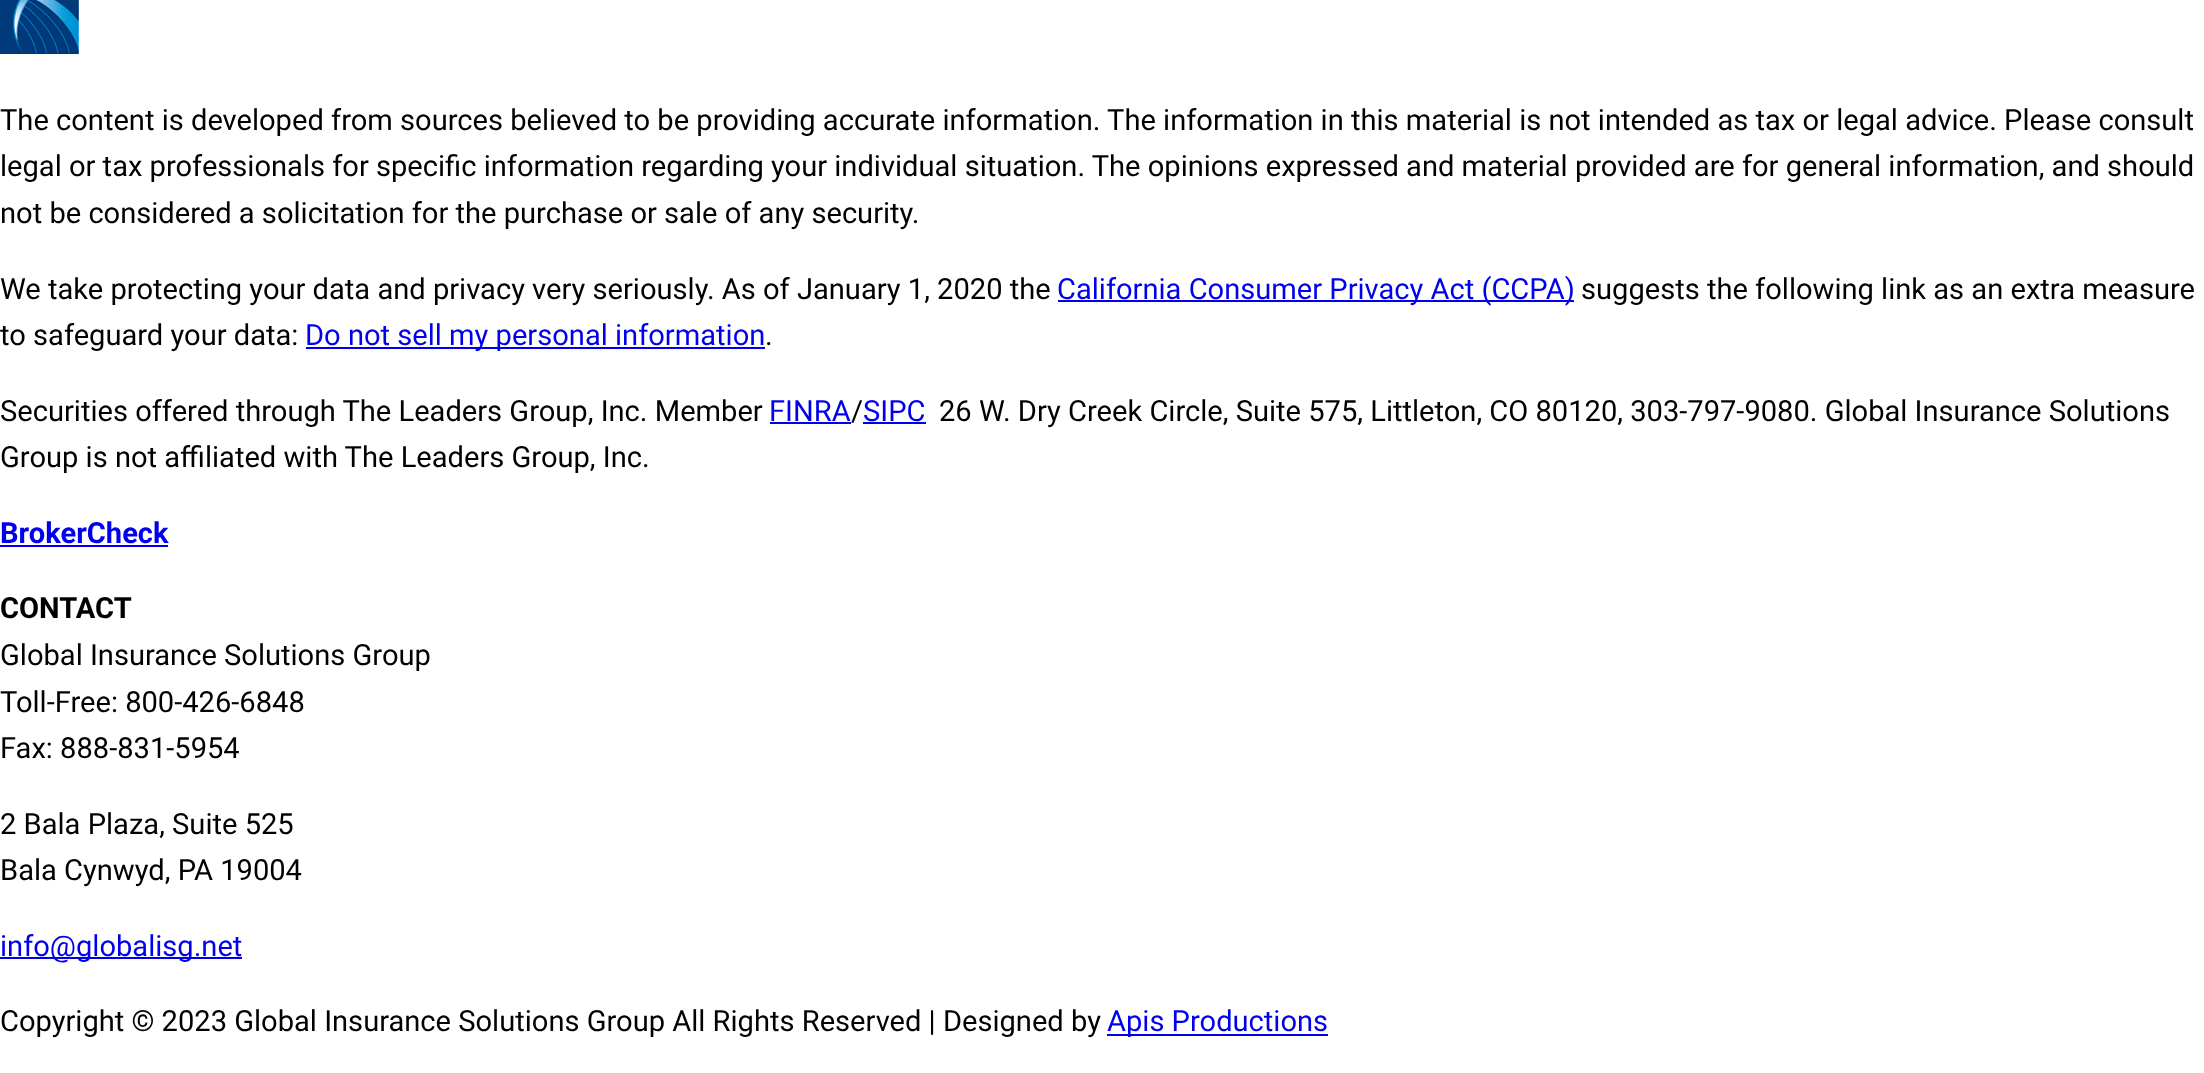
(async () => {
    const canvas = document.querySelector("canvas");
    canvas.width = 2204;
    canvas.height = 1073;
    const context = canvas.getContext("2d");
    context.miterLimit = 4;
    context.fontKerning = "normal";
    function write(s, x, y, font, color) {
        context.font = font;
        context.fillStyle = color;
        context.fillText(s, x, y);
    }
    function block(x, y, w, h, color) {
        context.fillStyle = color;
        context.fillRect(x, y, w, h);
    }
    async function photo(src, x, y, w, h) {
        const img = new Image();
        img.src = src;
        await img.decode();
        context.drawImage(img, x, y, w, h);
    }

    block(0, 0, 2204, 1073, "rgb(255, 255, 255)");
    await photo("media/1.png", 0, 0, 79, 54);
    write("The content is developed from sources believed to be providing accurate information. The information in this material is not intended as tax or legal advice. Please consult", 0, 130, "29.1px Roboto", "rgb(0, 0, 0)");
    write("legal or tax professionals for specific information regarding your individual situation. The opinions expressed and material provided are for general information, and should", 0, 176, "29.1px Roboto", "rgb(0, 0, 0)");
    write("not be considered a solicitation for the purchase or sale of any security.", 0, 223, "29.1px Roboto", "rgb(0, 0, 0)");
    write("We take protecting your data and privacy very seriously. As of January 1, 2020 the", 0, 299, "29.1px Roboto", "rgb(0, 0, 0)");
    block(1058, 300, 516, 2, "rgb(0, 0, 238)");
    write("California Consumer Privacy Act (CCPA)", 1057, 299, "29.1px Roboto", "rgb(0, 0, 238)");
    write("suggests the following link as an extra measure", 1581, 299, "29.1px Roboto", "rgb(0, 0, 0)");
    write("to safeguard your data:", 0, 345, "29.1px Roboto", "rgb(0, 0, 0)");
    block(306, 347, 459, 2, "rgb(0, 0, 238)");
    write("Do not sell my personal information", 305, 345, "29.1px Roboto", "rgb(0, 0, 238)");
    write(".", 765, 345, "29.1px Roboto", "rgb(0, 0, 0)");
    write("Securities offered through The Leaders Group, Inc. Member", 0, 421, "29.1px Roboto", "rgb(0, 0, 0)");
    write("FINRA", 769, 421, "29.1px Roboto", "rgb(0, 0, 238)");
    block(770, 422, 81, 2, "rgb(0, 0, 238)");
    write("/", 851, 421, "29.1px Roboto", "rgb(0, 0, 0)");
    write("SIPC", 863, 421, "29.1px Roboto", "rgb(0, 0, 238)");
    block(863, 422, 63, 2, "rgb(0, 0, 238)");
    write("26 W. Dry Creek Circle, Suite 575, Littleton, CO 80120, 303-797-9080. Global Insurance Solutions", 939, 421, "29.1px Roboto", "rgb(0, 0, 0)");
    write("Group is not affiliated with The Leaders Group, Inc.", 0, 467, "29.1px Roboto", "rgb(0, 0, 0)");
    write("BrokerCheck", 0, 543, "bold 29.1px Roboto", "rgb(0, 0, 238)");
    block(0, 545, 168, 2, "rgb(0, 0, 238)");
    write("CONTACT", 0, 618, "bold 29.1px Roboto", "rgb(0, 0, 0)");
    write("Global Insurance Solutions Group", 0, 665, "29.1px Roboto", "rgb(0, 0, 0)");
    write("Toll-Free: 800-426-6848", 0, 712, "29.1px Roboto", "rgb(0, 0, 0)");
    write("Fax: 888-831-5954", 0, 758, "29.1px Roboto", "rgb(0, 0, 0)");
    write("2 Bala Plaza, Suite 525", 0, 834, "29.1px Roboto", "rgb(0, 0, 0)");
    write("Bala Cynwyd, PA 19004", 0, 880, "29.1px Roboto", "rgb(0, 0, 0)");
    block(0, 957, 242, 2, "rgb(0, 0, 238)");
    write("info@globalisg.net", 0, 956, "29.1px Roboto", "rgb(0, 0, 238)");
    write("Copyright © 2023 Global Insurance Solutions Group All Rights Reserved | Designed by", 0, 1031, "29.1px Roboto", "rgb(0, 0, 0)");
    block(1107, 1034, 221, 2, "rgb(0, 0, 238)");
    write("Apis Productions", 1107, 1031, "29.1px Roboto", "rgb(0, 0, 238)");
})();
